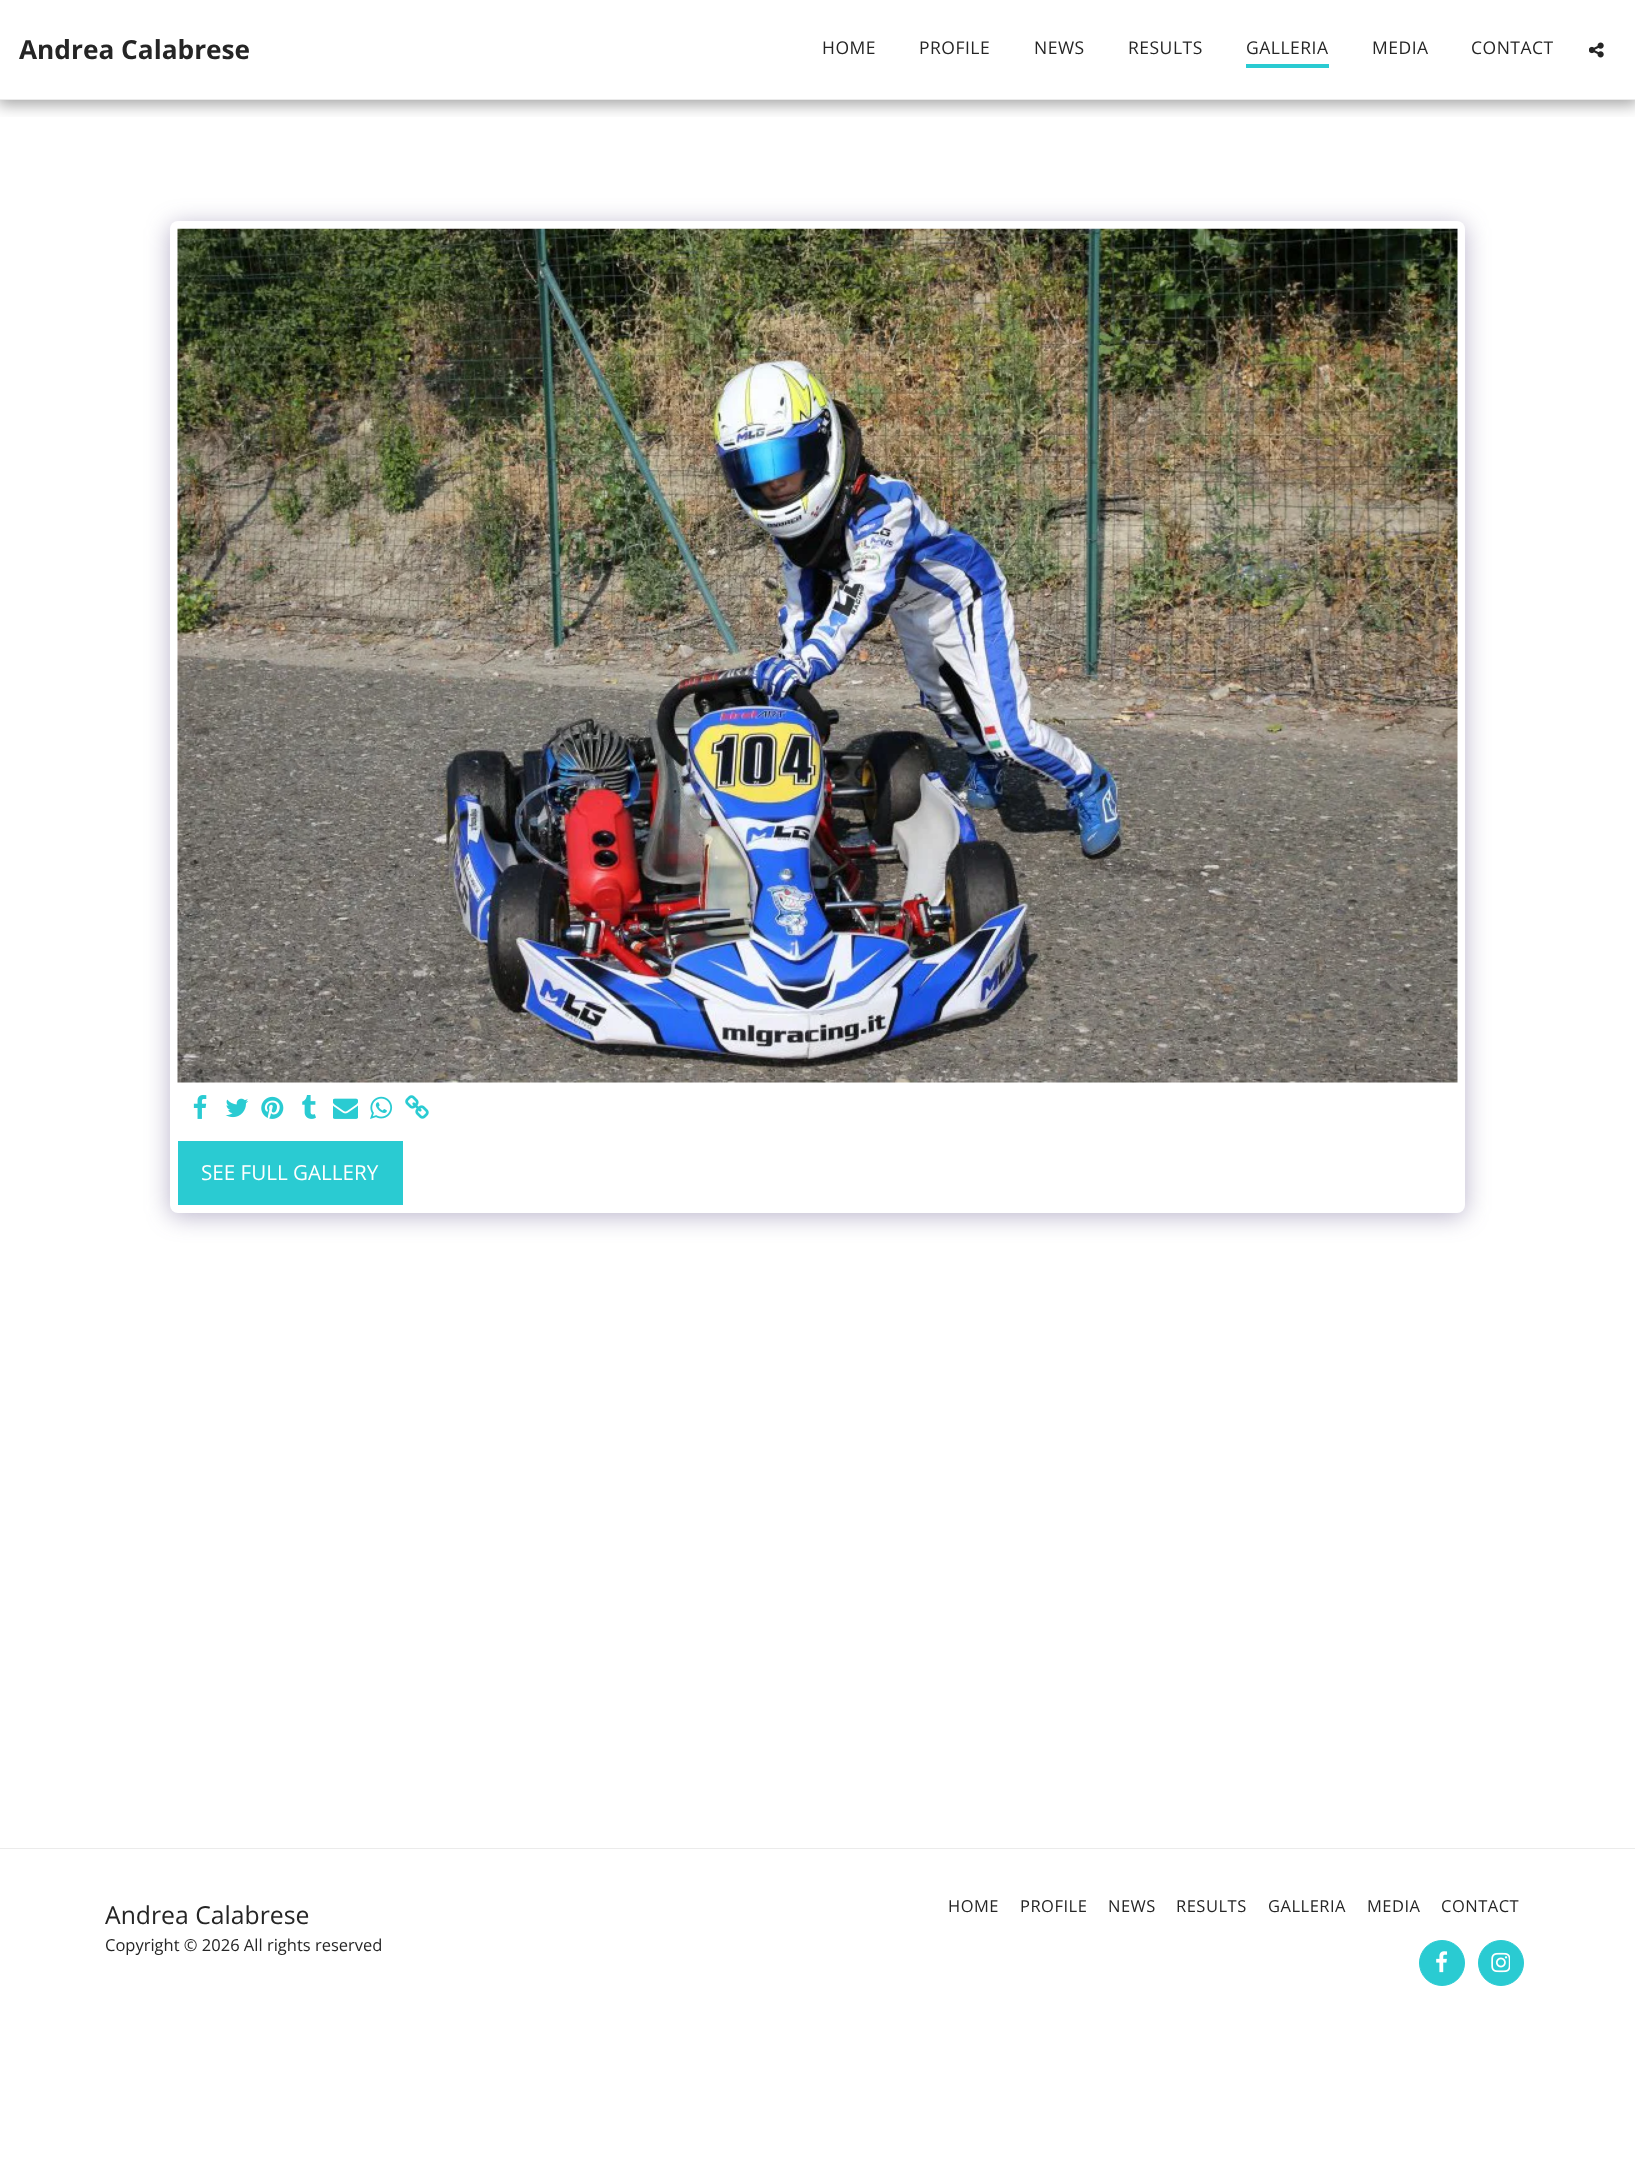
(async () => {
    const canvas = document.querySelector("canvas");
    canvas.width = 1635;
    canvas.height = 2183;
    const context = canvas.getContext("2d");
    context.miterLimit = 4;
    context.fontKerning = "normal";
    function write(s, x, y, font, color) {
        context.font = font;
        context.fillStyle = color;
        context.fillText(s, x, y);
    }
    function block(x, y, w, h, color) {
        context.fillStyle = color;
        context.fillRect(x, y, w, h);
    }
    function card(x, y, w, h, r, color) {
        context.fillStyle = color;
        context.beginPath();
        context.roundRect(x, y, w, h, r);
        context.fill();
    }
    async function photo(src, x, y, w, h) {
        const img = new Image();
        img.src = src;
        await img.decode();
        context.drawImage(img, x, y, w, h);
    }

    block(0, 0, 1635, 2183, "rgb(255, 255, 255)");
    context.save();
    context.beginPath();
    context.rect(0, 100, 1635, 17);
    context.clip();
    context.fillStyle = "rgba(0, 0, 0, 0.35)";
    context.filter = "blur(7.5px)";
    context.beginPath();
    context.rect(-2, 0, 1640, 105);
    context.fill();
    context.filter = "none";
    context.restore();
    block(0, 99, 1635, 1, "rgb(235, 235, 235)");
    write("Andrea Calabrese", 19, 59, "bold 26.25px Open Sans", "rgb(37, 37, 37)");
    context.letterSpacing = "0.5px";
    write("HOME", 822, 54, "17.5px Open Sans", "rgb(37, 37, 37)");
    write("PROFILE", 919, 54, "17.5px Open Sans", "rgb(37, 37, 37)");
    write("NEWS", 1034, 54, "17.5px Open Sans", "rgb(37, 37, 37)");
    write("RESULTS", 1128, 54, "17.5px Open Sans", "rgb(37, 37, 37)");
    write("GALLERIA", 1246, 54, "17.5px Open Sans", "rgb(37, 37, 37)");
    block(1246, 64, 83, 4, "rgb(42, 203, 210)");
    write("MEDIA", 1372, 54, "17.5px Open Sans", "rgb(37, 37, 37)");
    write("CONTACT", 1471, 54, "17.5px Open Sans", "rgb(37, 37, 37)");
    await photo("media/1.png", 1589, 42, 15, 16);
    context.fillStyle = "rgba(77, 63, 122, 0.4)";
    context.filter = "blur(12.5px)";
    context.beginPath();
    context.roundRect(170, 225, 1295, 991, 8);
    context.fill();
    context.filter = "none";
    card(170, 221, 1295, 992, 8, "rgb(255, 255, 255)");
    await photo("media/2.png", 177, 228, 1281, 855);
    await photo("media/3.png", 193, 1095, 14, 24);
    await photo("media/4.png", 225, 1098, 24, 20);
    await photo("media/5.png", 261, 1096, 23, 23);
    await photo("media/6.png", 302, 1095, 14, 24);
    await photo("media/7.png", 333, 1098, 25, 21);
    await photo("media/8.png", 370, 1096, 23, 23);
    await photo("media/9.png", 405, 1095, 24, 24);
    block(178, 1141, 225, 64, "rgb(42, 203, 210)");
    context.letterSpacing = "0px";
    write("SEE FULL GALLERY", 201, 1180, "20.6px Open Sans", "rgb(255, 255, 255)");
    block(0, 1848, 1635, 1, "rgb(235, 235, 235)");
    write("Andrea Calabrese", 105, 1924, "24.75px Open Sans", "rgb(37, 37, 37)");
    write("Copyright © 2026 All rights reserved", 105, 1951, "16.5px Open Sans", "rgb(37, 37, 37)");
    context.letterSpacing = "0.5px";
    write("HOME", 948, 1912, "16.5px Open Sans", "rgb(37, 37, 37)");
    write("PROFILE", 1020, 1912, "16.5px Open Sans", "rgb(37, 37, 37)");
    write("NEWS", 1108, 1912, "16.5px Open Sans", "rgb(37, 37, 37)");
    write("RESULTS", 1176, 1912, "16.5px Open Sans", "rgb(37, 37, 37)");
    write("GALLERIA", 1268, 1912, "16.5px Open Sans", "rgb(37, 37, 37)");
    write("MEDIA", 1367, 1912, "16.5px Open Sans", "rgb(37, 37, 37)");
    write("CONTACT", 1441, 1912, "16.5px Open Sans", "rgb(37, 37, 37)");
    context.fillStyle = "rgb(42, 203, 210)";
    context.beginPath();
    context.arc(1442, 1963, 22.5, 0, Math.PI * 2);
    context.fill();
    context.strokeStyle = "rgb(42, 203, 210)";
    context.stroke();
    await photo("media/10.png", 1436, 1951, 12, 22);
    context.beginPath();
    context.arc(1501, 1963, 22.5, 0, Math.PI * 2);
    context.fill();
    context.stroke();
    await photo("media/11.png", 1491, 1952, 19, 21);
})();
